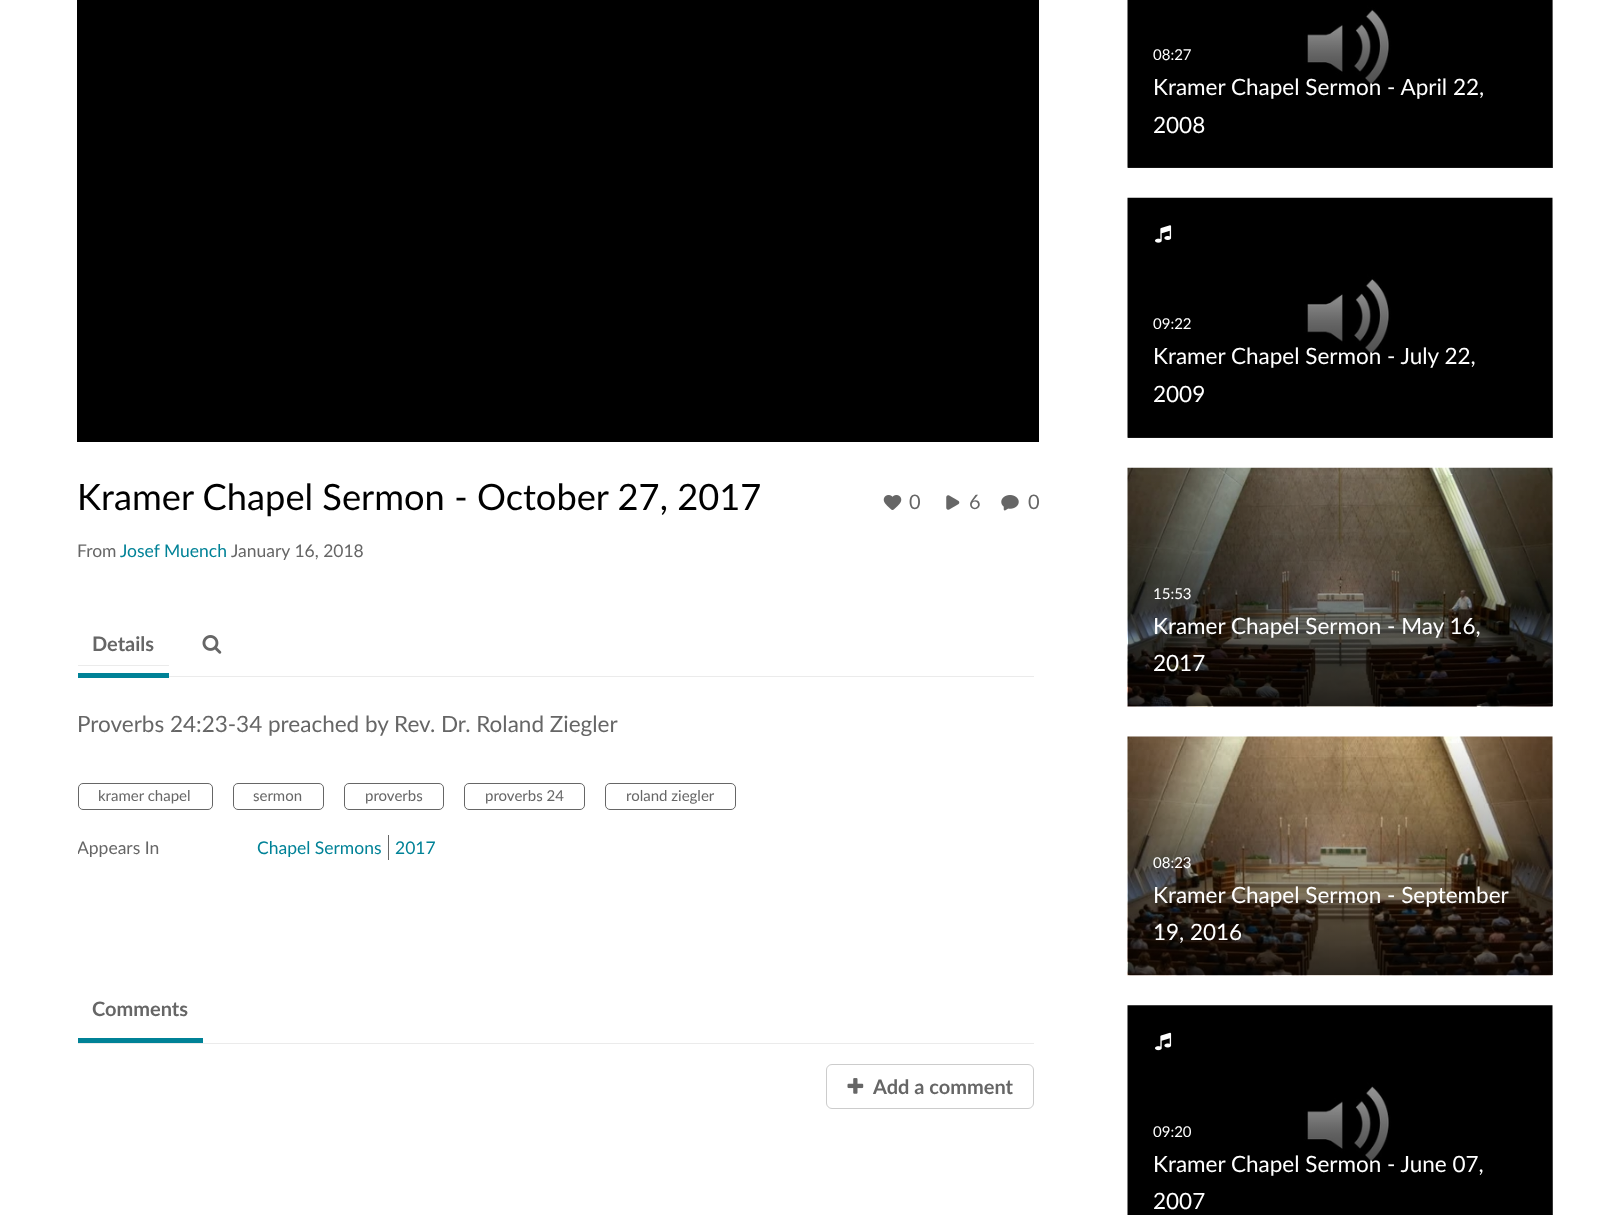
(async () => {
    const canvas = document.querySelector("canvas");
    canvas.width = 1616;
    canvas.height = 1215;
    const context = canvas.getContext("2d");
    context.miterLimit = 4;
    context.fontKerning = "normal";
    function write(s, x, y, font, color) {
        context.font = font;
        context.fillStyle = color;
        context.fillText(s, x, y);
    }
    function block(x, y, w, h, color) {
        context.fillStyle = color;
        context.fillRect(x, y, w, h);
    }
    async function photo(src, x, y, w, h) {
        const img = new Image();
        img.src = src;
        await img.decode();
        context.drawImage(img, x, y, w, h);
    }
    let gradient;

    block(0, 0, 1616, 1215, "rgb(255, 255, 255)");
    block(77, 0, 962, 442, "rgb(0, 0, 0)");
    write("Kramer Chapel Sermon - October 27, 2017", 77, 510, "36.25px Lato", "rgb(0, 0, 0)");
    write("From", 77, 557, "17.5px Lato", "rgb(102, 102, 102)");
    write("Josef Muench", 120, 557, "17.5px Lato", "rgb(0, 130, 151)");
    write("January 16, 2018", 231, 557, "17.5px Lato", "rgb(102, 102, 102)");
    await photo("media/1.png", 883, 495, 19, 15);
    write("0", 909, 509, "20px Lato", "rgb(102, 102, 102)");
    await photo("media/2.png", 946, 495, 14, 15);
    write("6", 969, 509, "20px Lato", "rgb(102, 102, 102)");
    await photo("media/3.png", 1001, 495, 18, 16);
    write("0", 1028, 509, "20px Lato", "rgb(102, 102, 102)");
    await photo("media/4.png", 1127, 0, 426, 168);
    gradient = context.createLinearGradient(1340, -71, 1340, 168);
    gradient.addColorStop(0, "rgba(0, 0, 0, 0)");
    gradient.addColorStop(1, "rgba(0, 0, 0, 0.7)");
    context.fillStyle = gradient;
    context.fillRect(1128, 0, 425, 168);
    write("08:27", 1153, 60, "15px Lato", "rgb(255, 255, 255)");
    write("Kramer Chapel Sermon - April 22,", 1153, 95, "22.5px Lato", "rgb(255, 255, 255)");
    write("2008", 1153, 133, "22.5px Lato", "rgb(255, 255, 255)");
    await photo("media/5.png", 1127, 197, 426, 241);
    gradient = context.createLinearGradient(1340, 198, 1340, 438);
    gradient.addColorStop(0, "rgba(0, 0, 0, 0)");
    gradient.addColorStop(1, "rgba(0, 0, 0, 0.7)");
    context.fillStyle = gradient;
    context.fillRect(1128, 205, 425, 233);
    await photo("media/6.png", 1155, 225, 17, 18);
    write("09:22", 1153, 329, "15px Lato", "rgb(255, 255, 255)");
    write("Kramer Chapel Sermon - July 22,", 1153, 364, "22.5px Lato", "rgb(255, 255, 255)");
    write("2009", 1153, 402, "22.5px Lato", "rgb(255, 255, 255)");
    await photo("media/7.png", 1127, 467, 426, 240);
    gradient = context.createLinearGradient(1340, 468, 1340, 706);
    gradient.addColorStop(0, "rgba(0, 0, 0, 0)");
    gradient.addColorStop(1, "rgba(0, 0, 0, 0.7)");
    context.fillStyle = gradient;
    context.fillRect(1128, 475, 425, 231);
    write("15:53", 1153, 599, "15px Lato", "rgb(255, 255, 255)");
    write("Kramer Chapel Sermon - May 16,", 1153, 634, "22.5px Lato", "rgb(255, 255, 255)");
    write("2017", 1153, 671, "22.5px Lato", "rgb(255, 255, 255)");
    await photo("media/8.png", 1127, 736, 426, 240);
    gradient = context.createLinearGradient(1340, 736, 1340, 975);
    gradient.addColorStop(0, "rgba(0, 0, 0, 0)");
    gradient.addColorStop(1, "rgba(0, 0, 0, 0.7)");
    context.fillStyle = gradient;
    context.fillRect(1128, 743, 425, 232);
    write("08:23", 1153, 868, "15px Lato", "rgb(255, 255, 255)");
    write("Kramer Chapel Sermon - September", 1153, 903, "22.5px Lato", "rgb(255, 255, 255)");
    write("19, 2016", 1153, 940, "22.5px Lato", "rgb(255, 255, 255)");
    await photo("media/9.png", 1127, 1005, 426, 210);
    await photo("media/10.png", 1155, 1032, 17, 19);
    gradient = context.createLinearGradient(1340, 1005, 1340, 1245);
    gradient.addColorStop(0, "rgba(0, 0, 0, 0)");
    gradient.addColorStop(1, "rgba(0, 0, 0, 0.7)");
    context.fillStyle = gradient;
    context.fillRect(1307, 1012, 246, 203);
    write("09:20", 1153, 1137, "15px Lato", "rgb(255, 255, 255)");
    write("Kramer Chapel Sermon - June 07,", 1153, 1172, "22.5px Lato", "rgb(255, 255, 255)");
    write("2007", 1153, 1209, "22.5px Lato", "rgb(255, 255, 255)");
    block(169, 676, 865, 1, "rgb(235, 235, 235)");
    block(78, 665, 91, 1, "rgb(235, 235, 235)");
    block(78, 673, 91, 5, "rgb(0, 130, 151)");
    write("Details", 92, 651, "bold 20px Lato", "rgb(102, 102, 102)");
    await photo("media/11.png", 202, 635, 20, 19);
    write("Proverbs 24:23-34 preached by Rev. Dr. Roland Ziegler", 77, 732, "22.5px Lato", "rgb(102, 102, 102)");
    context.beginPath();
    context.roundRect(78.5, 783.5, 134, 26, 4.5);
    context.strokeStyle = "rgb(102, 102, 102)";
    context.stroke();
    write("kramer chapel", 98, 801, "15px Lato", "rgb(102, 102, 102)");
    context.beginPath();
    context.roundRect(233.5, 783.5, 90, 26, 4.5);
    context.stroke();
    write("sermon", 253, 801, "15px Lato", "rgb(102, 102, 102)");
    context.beginPath();
    context.roundRect(344.5, 783.5, 99, 26, 4.5);
    context.stroke();
    write("proverbs", 365, 801, "15px Lato", "rgb(102, 102, 102)");
    context.beginPath();
    context.roundRect(464.5, 783.5, 120, 26, 4.5);
    context.stroke();
    write("proverbs 24", 485, 801, "15px Lato", "rgb(102, 102, 102)");
    context.beginPath();
    context.roundRect(605.5, 783.5, 130, 26, 4.5);
    context.stroke();
    write("roland ziegler", 626, 801, "15px Lato", "rgb(102, 102, 102)");
    context.save();
    context.beginPath();
    context.rect(78, 835, 150, 25);
    context.clip();
    write("Appears In", 77, 854, "17.5px Lato", "rgb(102, 102, 102)");
    context.restore();
    block(388, 835, 1, 25, "rgb(102, 102, 102)");
    write("Chapel Sermons", 257, 854, "17.5px Lato", "rgb(0, 130, 151)");
    write("2017", 395, 854, "17.5px Lato", "rgb(0, 130, 151)");
    block(78, 1043, 956, 1, "rgb(235, 235, 235)");
    block(78, 1038, 125, 5, "rgb(0, 130, 151)");
    write("Comments", 92, 1016, "bold 20px Lato", "rgb(102, 102, 102)");
    context.beginPath();
    context.roundRect(826.5, 1064.5, 207, 44, 5.5);
    context.strokeStyle = "rgb(204, 204, 204)";
    context.stroke();
    await photo("media/12.png", 847, 1078, 17, 16);
    write("Add a comment", 873, 1094, "bold 20px Lato", "rgb(102, 102, 102)");
})();
